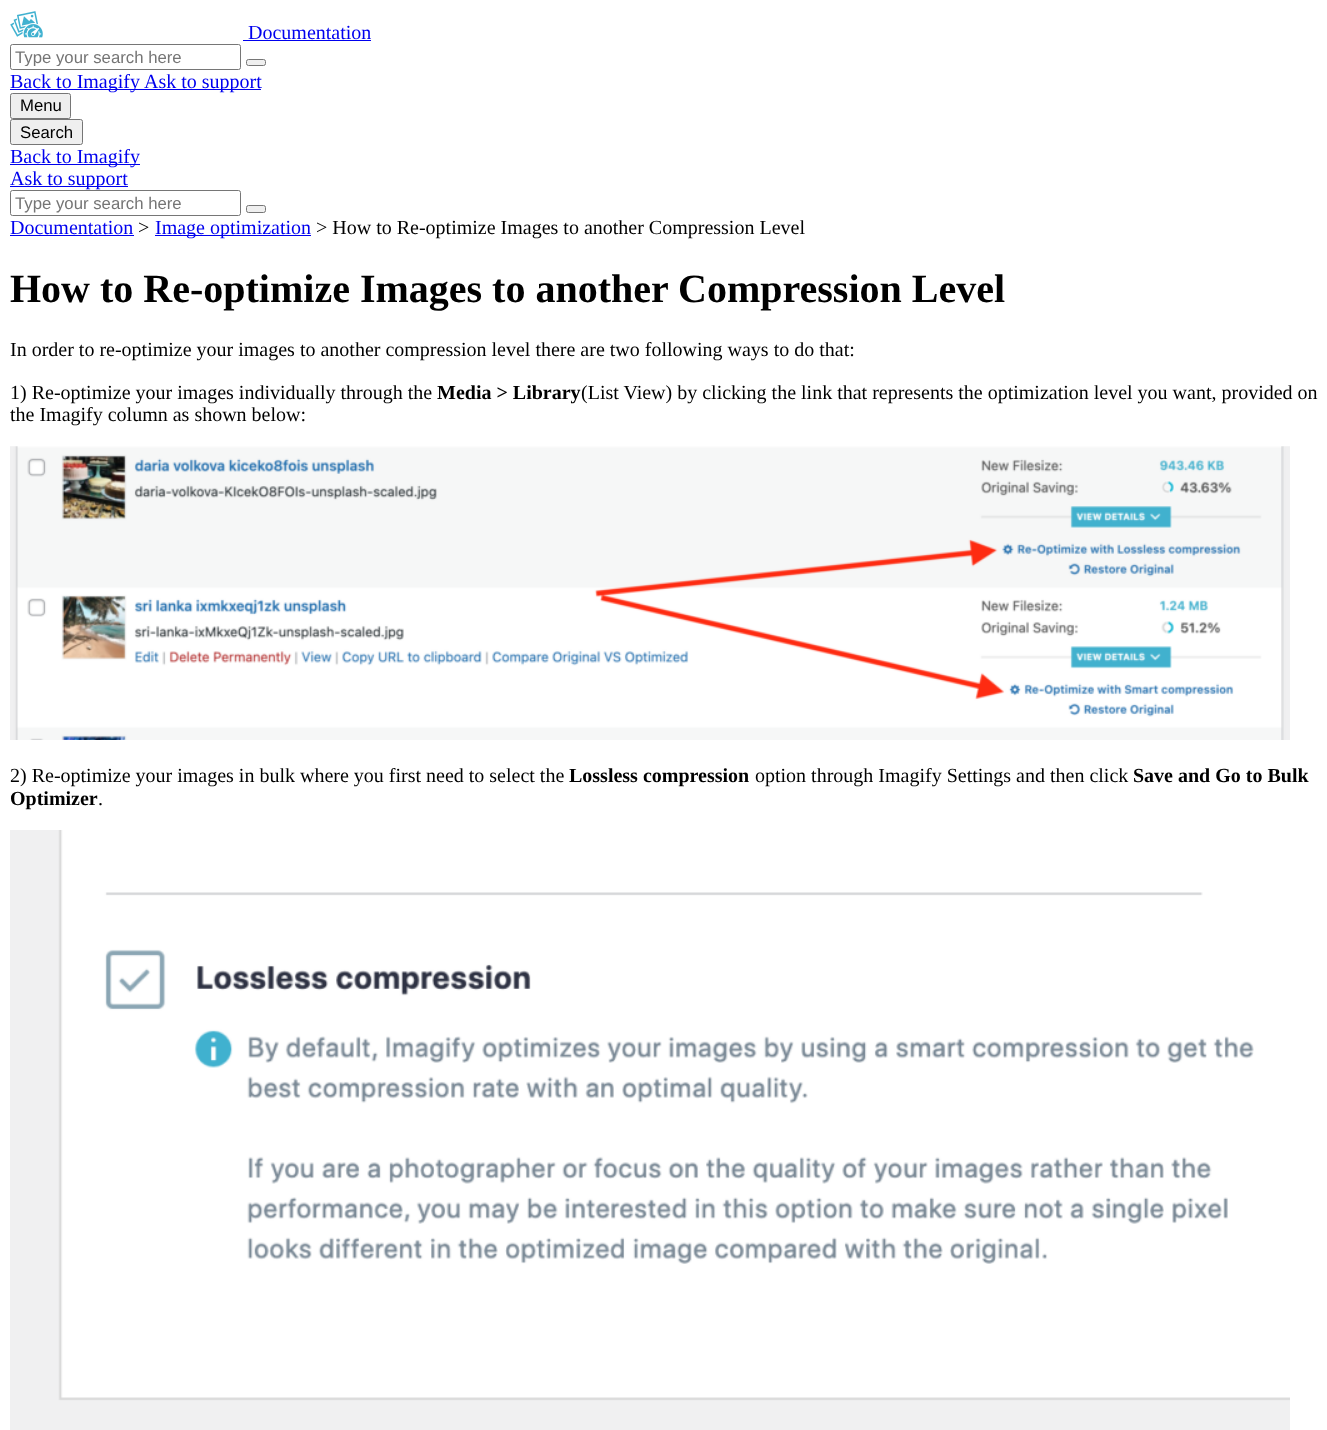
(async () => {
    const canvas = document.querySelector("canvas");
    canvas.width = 1327;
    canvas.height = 1430;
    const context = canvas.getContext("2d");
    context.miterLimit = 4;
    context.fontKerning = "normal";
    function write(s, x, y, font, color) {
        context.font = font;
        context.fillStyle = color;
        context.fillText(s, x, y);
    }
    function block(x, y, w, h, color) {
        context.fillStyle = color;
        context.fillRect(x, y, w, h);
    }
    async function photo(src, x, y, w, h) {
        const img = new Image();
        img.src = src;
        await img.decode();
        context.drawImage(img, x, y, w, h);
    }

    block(0, 0, 1327, 1430, "rgb(255, 255, 255)");
    await photo("media/1.png", 10, 11, 33, 27);
    write("Documentation", 248, 39, "20px Liberation Serif", "rgb(0, 0, 238)");
    block(243, 40, 128, 1, "rgb(0, 0, 238)");
    context.beginPath();
    context.roundRect(10.5, 44.5, 230, 25, 2);
    context.strokeStyle = "rgb(118, 118, 118)";
    context.stroke();
    context.save();
    context.beginPath();
    context.rect(15, 48, 221, 18);
    context.clip();
    write("Type your search here", 15, 63, "16.75px Liberation Sans", "rgb(117, 117, 117)");
    context.restore();
    context.fillStyle = "rgb(239, 239, 239)";
    context.beginPath();
    context.roundRect(246.5, 59.5, 19, 6, 2);
    context.fill();
    context.stroke();
    block(10, 89, 251, 1, "rgb(0, 0, 238)");
    write("Back to Imagify", 10, 88, "20px Liberation Serif", "rgb(0, 0, 238)");
    write("Ask to support", 144, 88, "20px Liberation Serif", "rgb(0, 0, 238)");
    context.fillStyle = "rgb(239, 239, 239)";
    context.beginPath();
    context.roundRect(10.5, 93.5, 60, 25, 2);
    context.fill();
    context.stroke();
    write("Menu", 20, 111, "16.75px Liberation Sans", "rgb(0, 0, 0)");
    context.fillStyle = "rgb(239, 239, 239)";
    context.beginPath();
    context.roundRect(10.5, 119.5, 72, 25, 2);
    context.fill();
    context.stroke();
    write("Search", 20, 138, "16.75px Liberation Sans", "rgb(0, 0, 0)");
    block(10, 164, 130, 1, "rgb(0, 0, 238)");
    write("Back to Imagify", 10, 163, "20px Liberation Serif", "rgb(0, 0, 238)");
    block(10, 186, 118, 1, "rgb(0, 0, 238)");
    write("Ask to support", 10, 185, "20px Liberation Serif", "rgb(0, 0, 238)");
    context.beginPath();
    context.roundRect(10.5, 190.5, 230, 25, 2);
    context.stroke();
    write("Type your search here", 15, 209, "16.75px Liberation Sans", "rgb(117, 117, 117)");
    context.fillStyle = "rgb(239, 239, 239)";
    context.beginPath();
    context.roundRect(246.5, 205.5, 19, 7, 2);
    context.fill();
    context.stroke();
    write("Documentation", 10, 234, "20px Liberation Serif", "rgb(0, 0, 238)");
    block(10, 235, 124, 1, "rgb(0, 0, 238)");
    write(">", 138, 234, "20px Liberation Serif", "rgb(0, 0, 0)");
    block(155, 235, 156, 1, "rgb(0, 0, 238)");
    write("Image optimization", 155, 234, "20px Liberation Serif", "rgb(0, 0, 238)");
    write("> How to Re-optimize Images to another Compression Level", 316, 234, "20px Liberation Serif", "rgb(0, 0, 0)");
    write("How to Re-optimize Images to another Compression Level", 10, 302, "bold 40px Liberation Serif", "rgb(0, 0, 0)");
    write("In order to re-optimize your images to another compression level there are two following ways to do that:", 10, 356, "20px Liberation Serif", "rgb(0, 0, 0)");
    write("1) Re-optimize your images individually through the", 10, 399, "20px Liberation Serif", "rgb(0, 0, 0)");
    write("Media > Library", 437, 399, "bold 20px Liberation Serif", "rgb(0, 0, 0)");
    write("(List View) by clicking the link that represents the optimization level you want, provided on", 581, 399, "20px Liberation Serif", "rgb(0, 0, 0)");
    write("the Imagify column as shown below:", 10, 421, "20px Liberation Serif", "rgb(0, 0, 0)");
    await photo("media/2.png", 10, 446, 1280, 294);
    write("2) Re-optimize your images in bulk where you first need to select the", 10, 782, "20px Liberation Serif", "rgb(0, 0, 0)");
    write("Lossless compression", 569, 782, "bold 20px Liberation Serif", "rgb(0, 0, 0)");
    write("option through Imagify Settings and then click", 755, 782, "20px Liberation Serif", "rgb(0, 0, 0)");
    write("Save and Go to Bulk", 1133, 782, "bold 20px Liberation Serif", "rgb(0, 0, 0)");
    write("Optimizer", 10, 805, "bold 20px Liberation Serif", "rgb(0, 0, 0)");
    write(".", 98, 805, "20px Liberation Serif", "rgb(0, 0, 0)");
    await photo("media/3.png", 10, 830, 1280, 600);
})();
